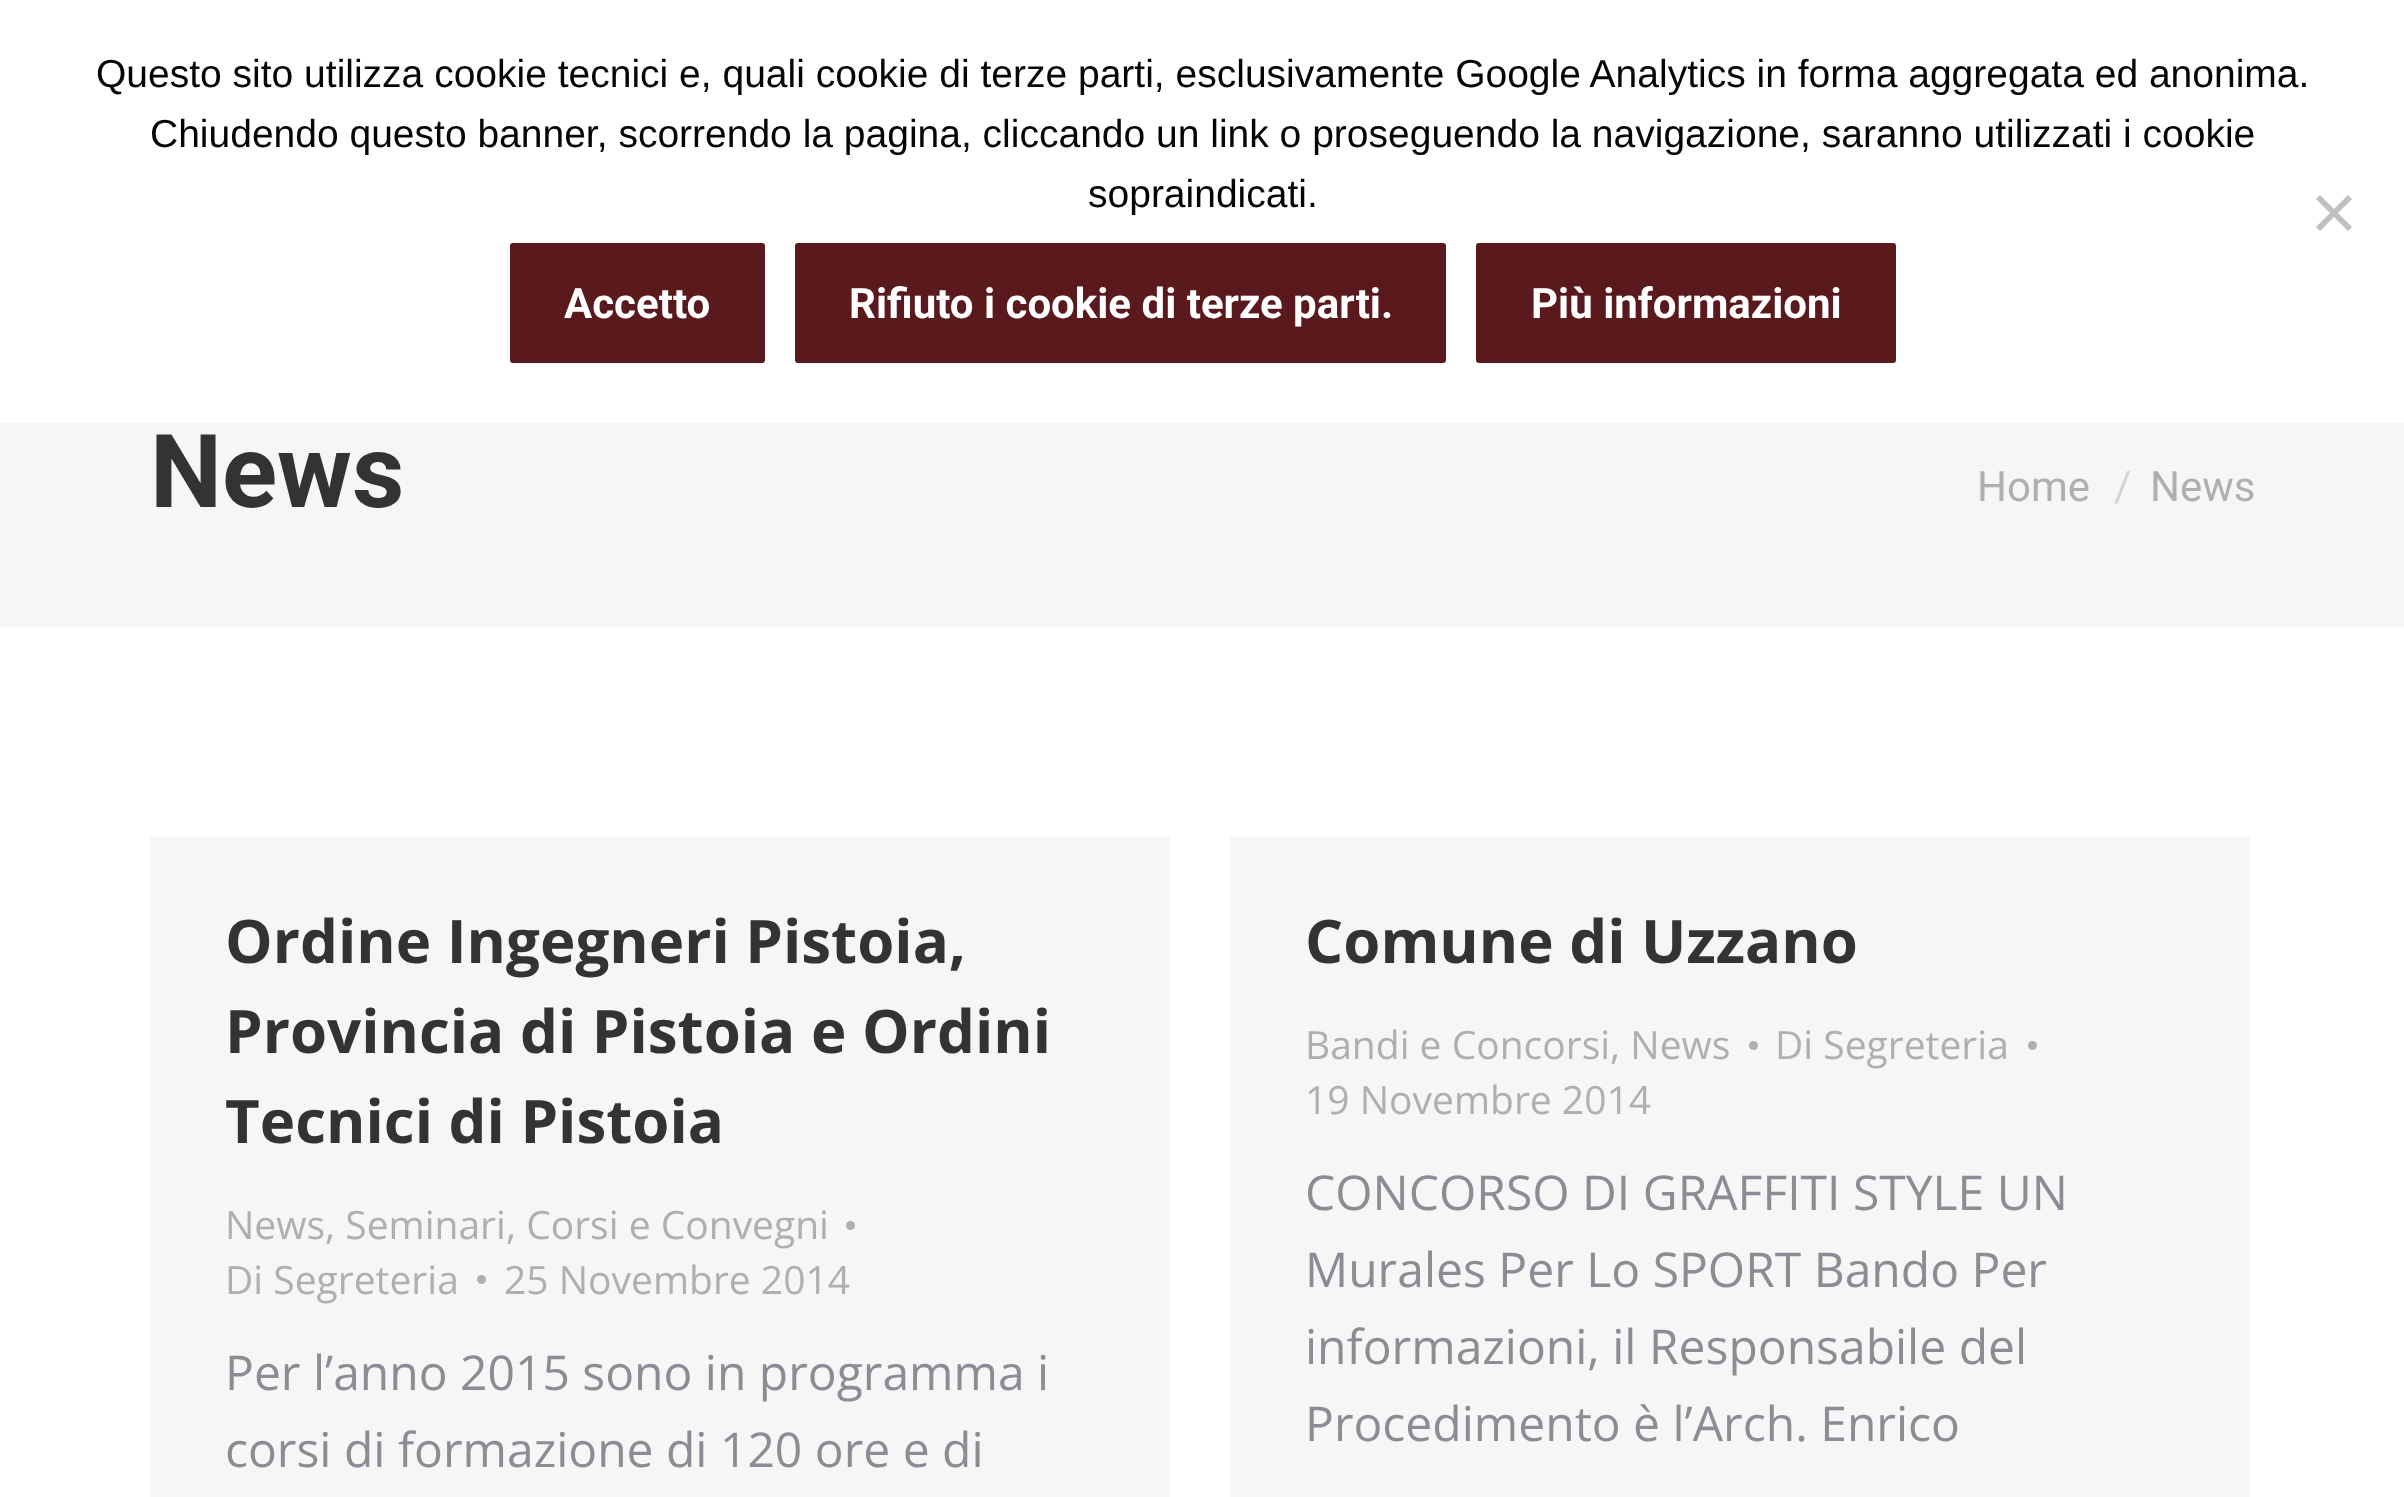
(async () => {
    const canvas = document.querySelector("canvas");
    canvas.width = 2404;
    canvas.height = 1497;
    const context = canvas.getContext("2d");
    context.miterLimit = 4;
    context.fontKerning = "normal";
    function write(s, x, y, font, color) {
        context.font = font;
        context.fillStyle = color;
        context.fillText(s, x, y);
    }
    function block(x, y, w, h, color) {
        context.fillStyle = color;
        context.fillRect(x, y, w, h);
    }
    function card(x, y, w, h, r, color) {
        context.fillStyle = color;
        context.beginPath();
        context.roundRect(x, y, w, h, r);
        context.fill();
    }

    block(0, 0, 2404, 1497, "rgb(255, 255, 255)");
    write("Questo sito utilizza cookie tecnici e, quali cookie di terze parti, esclusivamente Google Analytics in forma aggregata ed anonima.", 96, 87, "39px Liberation Sans", "rgb(5, 5, 5)");
    write("Chiudendo questo banner, scorrendo la pagina, cliccando un link o proseguendo la navigazione, saranno utilizzati i cookie", 150, 147, "39px Liberation Sans", "rgb(5, 5, 5)");
    write("sopraindicati.", 1088, 207, "39px Liberation Sans", "rgb(5, 5, 5)");
    context.fillStyle = "rgb(192, 192, 192)";
    context.beginPath();
    context.moveTo(2348, 195);
    context.lineTo(2352, 199);
    context.lineTo(2320, 231);
    context.lineTo(2316, 227);
    context.closePath();
    context.fill();
    context.beginPath();
    context.moveTo(2316, 199);
    context.lineTo(2320, 195);
    context.lineTo(2352, 227);
    context.lineTo(2348, 231);
    context.closePath();
    context.fill();
    card(510, 243, 255, 120, 3, "rgb(89, 25, 29)");
    write("Accetto", 564, 318, "bold 42px Roboto", "rgb(255, 255, 255)");
    card(795, 243, 651, 120, 3, "rgb(89, 25, 29)");
    write("Rifiuto i cookie di terze parti.", 849, 318, "bold 42px Roboto", "rgb(255, 255, 255)");
    card(1476, 243, 420, 120, 3, "rgb(89, 25, 29)");
    write("Più informazioni", 1531, 318, "bold 42px Roboto", "rgb(255, 255, 255)");
    block(0, 423, 2404, 204, "rgb(246, 246, 246)");
    write("News", 150, 507, "bold 102px Roboto", "rgb(51, 51, 51)");
    write("Home", 1977, 501, "42px Roboto", "rgb(173, 175, 179)");
    write("/", 2114, 501, "42px Roboto", "rgb(210, 211, 213)");
    write("News", 2150, 501, "42px Roboto", "rgb(173, 175, 179)");
    block(150, 837, 1020, 660, "rgb(246, 246, 246)");
    write("Ordine Ingegneri Pistoia,", 225, 963, "bold 60px Open Sans", "rgb(51, 51, 51)");
    write("Provincia di Pistoia e Ordini", 225, 1053, "bold 60px Open Sans", "rgb(51, 51, 51)");
    write("Tecnici di Pistoia", 225, 1143, "bold 60px Open Sans", "rgb(51, 51, 51)");
    write("News, Seminari, Corsi e Convegni", 225, 1239, "39px Open Sans", "rgb(173, 175, 179)");
    context.beginPath();
    context.arc(850.5, 1225.5, 4.5, 0, Math.PI * 2);
    context.fill();
    write("Di Segreteria", 225, 1294, "39px Open Sans", "rgb(173, 175, 179)");
    context.beginPath();
    context.arc(481.5, 1279.5, 4.5, 0, Math.PI * 2);
    context.fill();
    write("25 Novembre 2014", 504, 1294, "39px Open Sans", "rgb(173, 175, 179)");
    write("Per l’anno 2015 sono in programma i", 225, 1390, "48px Open Sans", "rgb(139, 141, 148)");
    write("corsi di formazione di 120 ore e di", 225, 1467, "48px Open Sans", "rgb(139, 141, 148)");
    block(1230, 837, 1020, 660, "rgb(246, 246, 246)");
    write("Comune di Uzzano", 1305, 963, "bold 60px Open Sans", "rgb(51, 51, 51)");
    write("Bandi e Concorsi, News", 1305, 1059, "39px Open Sans", "rgb(173, 175, 179)");
    context.beginPath();
    context.arc(1753.5, 1045.5, 4.5, 0, Math.PI * 2);
    context.fill();
    write("Di Segreteria", 1775, 1059, "39px Open Sans", "rgb(173, 175, 179)");
    context.beginPath();
    context.arc(2032.5, 1045.5, 4.5, 0, Math.PI * 2);
    context.fill();
    write("19 Novembre 2014", 1305, 1114, "39px Open Sans", "rgb(173, 175, 179)");
    write("CONCORSO DI GRAFFITI STYLE UN", 1305, 1210, "48px Open Sans", "rgb(139, 141, 148)");
    write("Murales Per Lo SPORT Bando Per", 1305, 1287, "48px Open Sans", "rgb(139, 141, 148)");
    write("informazioni, il Responsabile del", 1305, 1364, "48px Open Sans", "rgb(139, 141, 148)");
    write("Procedimento è l’Arch. Enrico", 1305, 1441, "48px Open Sans", "rgb(139, 141, 148)");
})();
